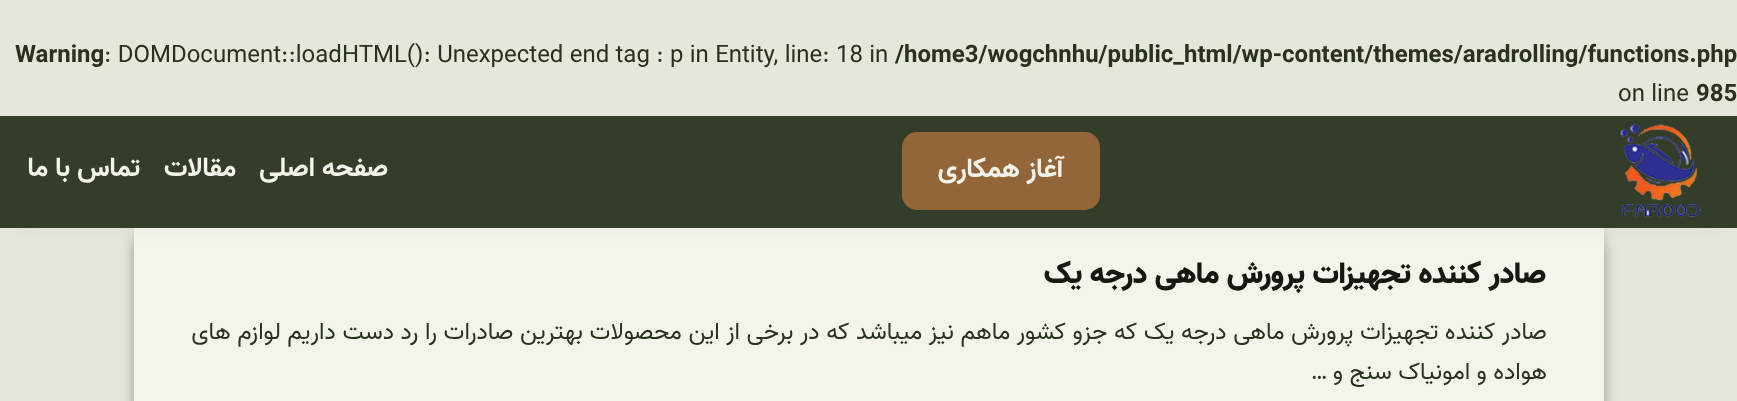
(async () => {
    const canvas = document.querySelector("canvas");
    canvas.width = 1737;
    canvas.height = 401;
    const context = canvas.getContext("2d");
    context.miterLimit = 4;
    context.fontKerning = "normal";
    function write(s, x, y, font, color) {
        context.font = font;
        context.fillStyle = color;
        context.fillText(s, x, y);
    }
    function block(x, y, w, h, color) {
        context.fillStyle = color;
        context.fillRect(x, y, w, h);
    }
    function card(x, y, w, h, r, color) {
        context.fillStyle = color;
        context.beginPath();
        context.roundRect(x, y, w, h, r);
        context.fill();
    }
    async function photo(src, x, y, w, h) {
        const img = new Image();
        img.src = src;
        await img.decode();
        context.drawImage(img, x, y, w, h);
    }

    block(0, 0, 1737, 401, "rgb(229, 231, 218)");
    write("/home3/wogchnhu/public_html/wp-content/themes/aradrolling/functions.php", 895, 62, "bold 24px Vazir", "rgb(41, 49, 33)");
    write(": DOMDocument::loadHTML(): Unexpected end tag : p in Entity, line: 18 in", 104, 62, "24px Vazir", "rgb(41, 49, 33)");
    write("Warning", 15, 62, "bold 24px Vazir", "rgb(41, 49, 33)");
    write("985", 1696, 101, "bold 24px Vazir", "rgb(41, 49, 33)");
    write("on line", 1618, 101, "24px Vazir", "rgb(41, 49, 33)");
    context.fillStyle = "rgba(136, 136, 136, 0.84)";
    context.filter = "blur(7px)";
    context.beginPath();
    context.roundRect(134, 228, 1470, 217, 23);
    context.fill();
    context.filter = "none";
    block(134, 228, 1470, 173, "rgb(243, 244, 236)");
    context.fillStyle = "rgba(0, 0, 0, 0.1)";
    context.filter = "blur(11px)";
    context.beginPath();
    context.rect(15, 138, 1707, 83);
    context.fill();
    context.filter = "none";
    block(0, 116, 1737, 112, "rgb(51, 61, 41)");
    await photo("media/1.png", 1619, 123, 82, 94);
    card(902, 132, 198, 78, 15, "rgb(147, 102, 57)");
    context.direction = "rtl";
    write("آغاز همکاری", 1063, 177, "bold 27px Vazir", "rgb(243, 244, 236)");
    write("صفحه اصلی", 388, 176, "bold 27px Vazir", "rgb(243, 244, 236)");
    write("مقالات", 236, 176, "bold 27px Vazir", "rgb(243, 244, 236)");
    write("تماس با ما", 140, 176, "bold 27px Vazir", "rgb(243, 244, 236)");
    write("صادر کننده تجهیزات پرورش ماهی درجه یک", 1546, 283, "900 30px Vazir", "rgb(20, 24, 16)");
    context.wordSpacing = "0.25px";
    write("صادر کننده تجهیزات پرورش ماهی درجه یک که جزو کشور ماهم نیز میباشد که در برخی از این محصولات بهترین صادرات را رد دست داریم لوازم های", 1547, 339, "24px Vazir", "rgb(41, 49, 33)");
    context.wordSpacing = "0px";
    write("هواده و امونیاک سنج و …", 1547, 379, "24px Vazir", "rgb(41, 49, 33)");
})();
